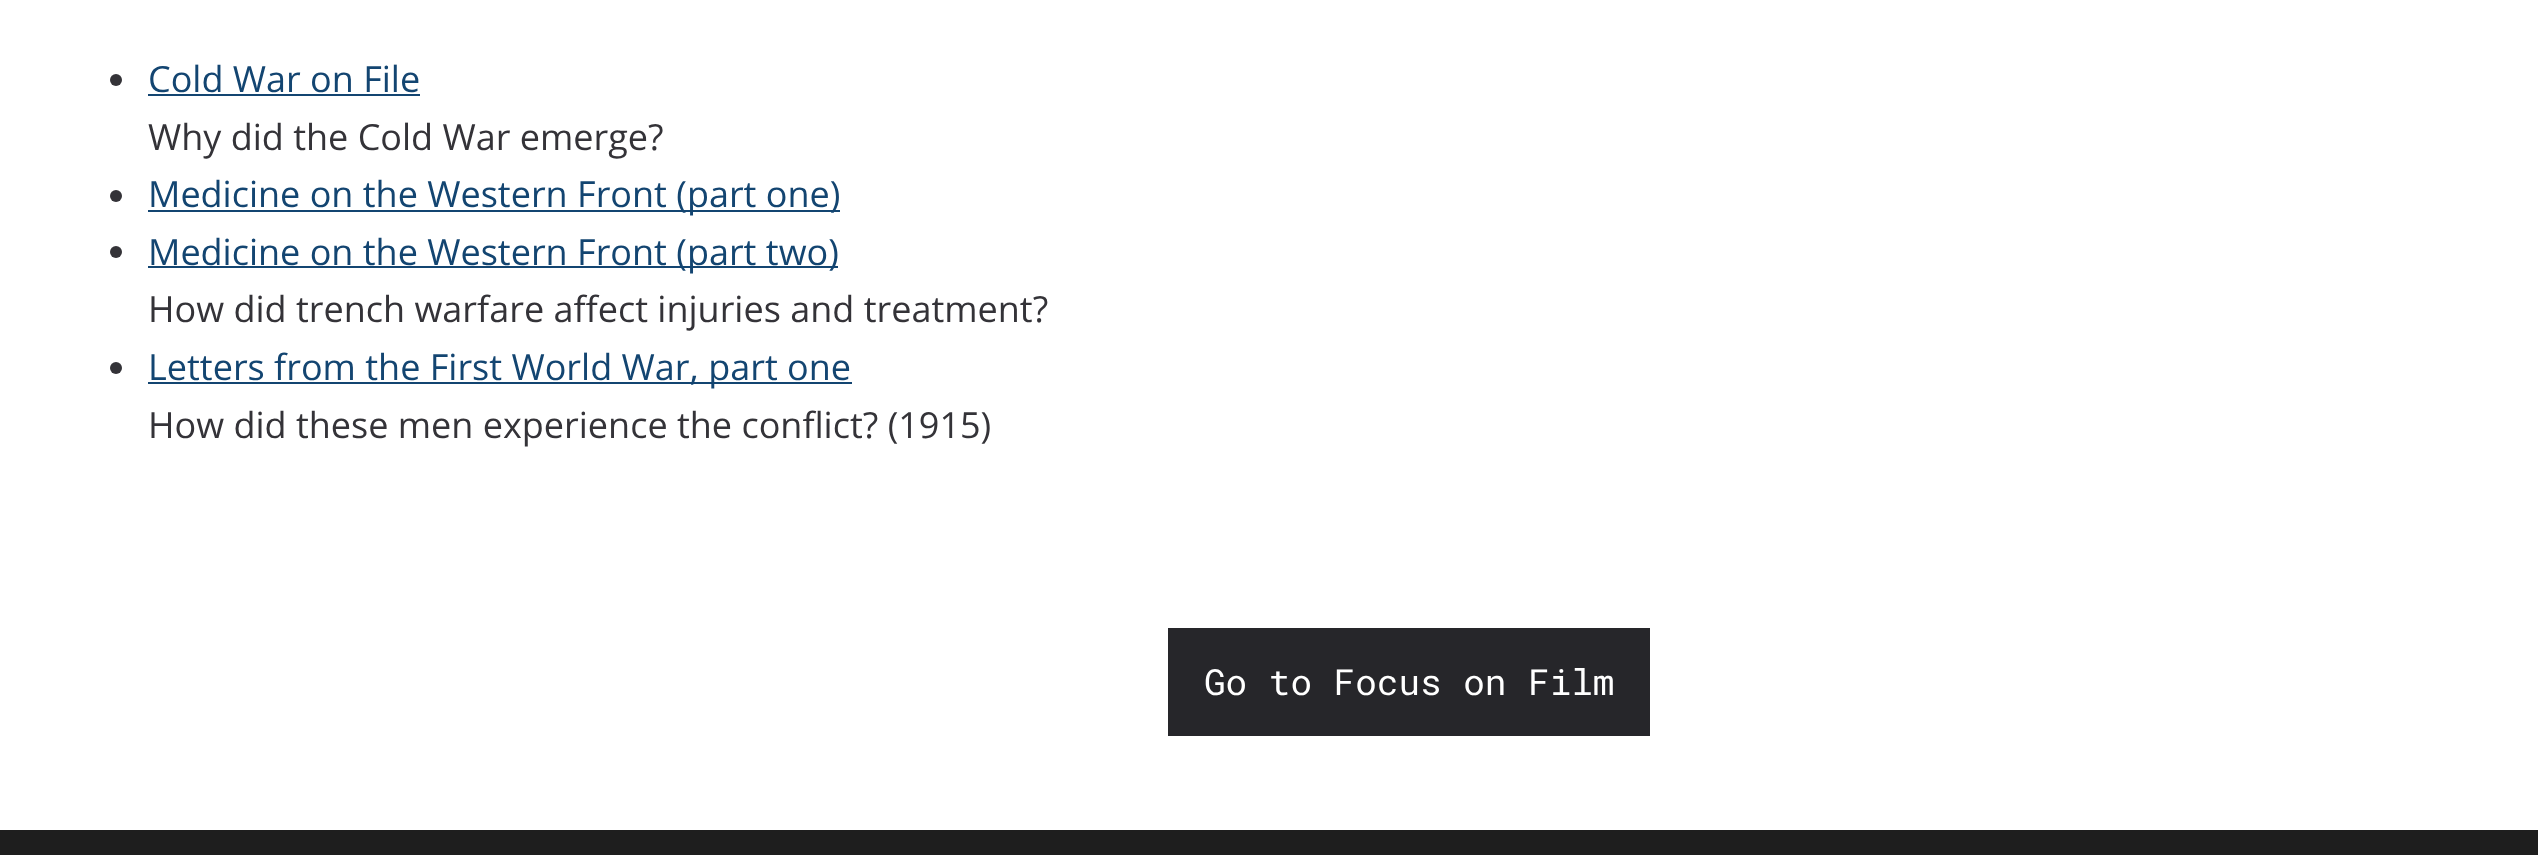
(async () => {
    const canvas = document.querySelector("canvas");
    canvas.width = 2538;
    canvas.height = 855;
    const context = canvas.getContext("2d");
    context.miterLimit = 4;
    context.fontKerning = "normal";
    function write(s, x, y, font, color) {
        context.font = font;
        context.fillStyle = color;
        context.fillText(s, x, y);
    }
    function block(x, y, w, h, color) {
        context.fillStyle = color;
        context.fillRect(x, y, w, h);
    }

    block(0, 0, 2538, 855, "rgb(255, 255, 255)");
    context.fillStyle = "rgb(52, 51, 56)";
    context.beginPath();
    context.arc(116, 80, 6, 0, Math.PI * 2);
    context.fill();
    write("Cold War on File", 148, 92, "36px Open Sans", "rgb(19, 69, 113)");
    block(148, 94, 272, 2, "rgb(19, 69, 113)");
    write("Why did the Cold War emerge?", 148, 150, "36px Open Sans", "rgb(52, 51, 56)");
    context.beginPath();
    context.arc(116, 196, 6, 0, Math.PI * 2);
    context.fill();
    block(148, 210, 692, 2, "rgb(19, 69, 113)");
    write("Medicine on the Western Front (part one)", 148, 207, "36px Open Sans", "rgb(19, 69, 113)");
    context.fillStyle = "rgb(52, 51, 56)";
    context.beginPath();
    context.arc(116, 252, 6, 0, Math.PI * 2);
    context.fill();
    block(148, 266, 690, 2, "rgb(19, 69, 113)");
    write("Medicine on the Western Front (part two)", 148, 265, "36px Open Sans", "rgb(19, 69, 113)");
    write("How did trench warfare affect injuries and treatment?", 148, 322, "36px Open Sans", "rgb(52, 51, 56)");
    context.beginPath();
    context.arc(116, 368, 6, 0, Math.PI * 2);
    context.fill();
    block(148, 382, 704, 2, "rgb(19, 69, 113)");
    write("Letters from the First World War, part one", 148, 380, "36px Open Sans", "rgb(19, 69, 113)");
    write("How did these men experience the conflict? (1915)", 148, 438, "36px Open Sans", "rgb(52, 51, 56)");
    block(1168, 628, 482, 108, "rgb(38, 38, 42)");
    write("Go to Focus on Film", 1204, 695, "36px Roboto Mono", "rgb(255, 255, 255)");
    block(0, 830, 2538, 25, "rgb(30, 30, 30)");
})();
